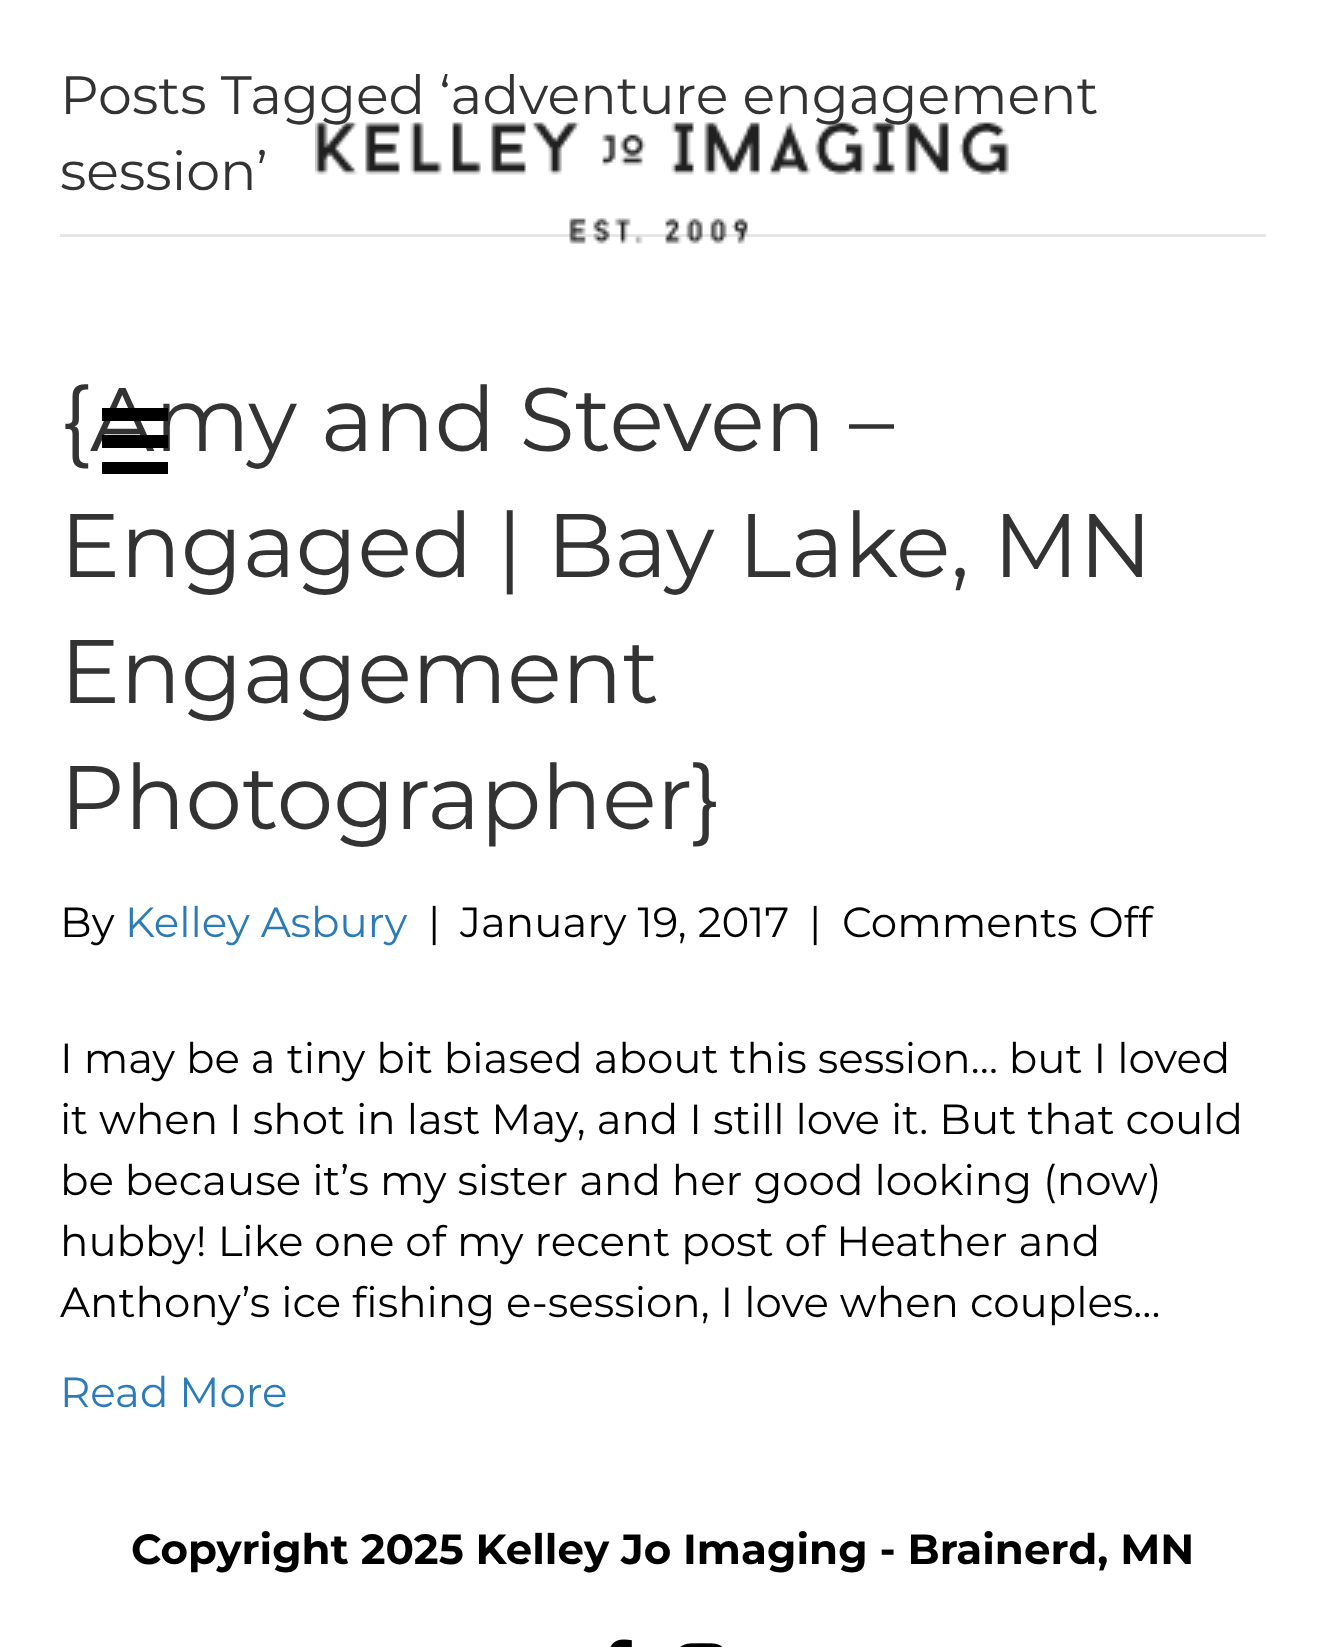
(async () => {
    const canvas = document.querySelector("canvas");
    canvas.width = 1325;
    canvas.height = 1647;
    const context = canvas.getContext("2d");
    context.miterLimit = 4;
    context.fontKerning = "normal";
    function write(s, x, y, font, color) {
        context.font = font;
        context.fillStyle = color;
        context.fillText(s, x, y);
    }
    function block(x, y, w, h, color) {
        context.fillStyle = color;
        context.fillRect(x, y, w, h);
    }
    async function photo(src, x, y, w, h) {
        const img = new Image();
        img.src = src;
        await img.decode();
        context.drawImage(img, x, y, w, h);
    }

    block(0, 0, 1325, 1647, "rgb(255, 255, 255)");
    block(60, 234, 1206, 3, "rgb(230, 230, 230)");
    write("Posts Tagged ‘adventure engagement", 60, 114, "54px Montserrat", "rgb(51, 51, 51)");
    write("session’", 60, 190, "54px Montserrat", "rgb(51, 51, 51)");
    write("{Amy and Steven –", 60, 451, "90px Montserrat", "rgb(51, 51, 51)");
    write("Engaged | Bay Lake, MN", 60, 577, "90px Montserrat", "rgb(51, 51, 51)");
    write("Engagement", 60, 703, "90px Montserrat", "rgb(51, 51, 51)");
    write("Photographer}", 60, 829, "90px Montserrat", "rgb(51, 51, 51)");
    write("By", 60, 937, "42px Montserrat", "rgb(0, 0, 0)");
    write("Kelley Asbury", 125, 937, "42px Montserrat", "rgb(43, 123, 185)");
    write("|", 428, 937, "42px Montserrat", "rgb(0, 0, 0)");
    write("January 19, 2017", 460, 937, "42px Montserrat", "rgb(0, 0, 0)");
    write("|", 809, 937, "42px Montserrat", "rgb(0, 0, 0)");
    write("Comments Off", 842, 937, "42px Montserrat", "rgb(0, 0, 0)");
    write("I may be a tiny bit biased about this session… but I loved", 60, 1073, "42px Montserrat", "rgb(0, 0, 0)");
    write("it when I shot in last May, and I still love it. But that could", 60, 1134, "42px Montserrat", "rgb(0, 0, 0)");
    write("be because it’s my sister and her good looking (now)", 60, 1195, "42px Montserrat", "rgb(0, 0, 0)");
    write("hubby! Like one of my recent post of Heather and", 60, 1256, "42px Montserrat", "rgb(0, 0, 0)");
    write("Anthony’s ice fishing e-session, I love when couples…", 60, 1317, "42px Montserrat", "rgb(0, 0, 0)");
    write("Read More", 60, 1407, "42px Montserrat", "rgb(43, 123, 185)");
    await photo("media/1.png", 315, 122, 694, 122);
    block(102, 408, 66, 13, "rgb(0, 0, 0)");
    block(102, 435, 66, 13, "rgb(0, 0, 0)");
    block(102, 462, 66, 12, "rgb(0, 0, 0)");
    write("Copyright 2025 Kelley Jo Imaging - Brainerd, MN", 131, 1564, "bold 42px Montserrat", "rgb(0, 0, 0)");
    await photo("media/2.png", 610, 1639, 22, 8);
    await photo("media/3.png", 680, 1643, 43, 4);
})();
